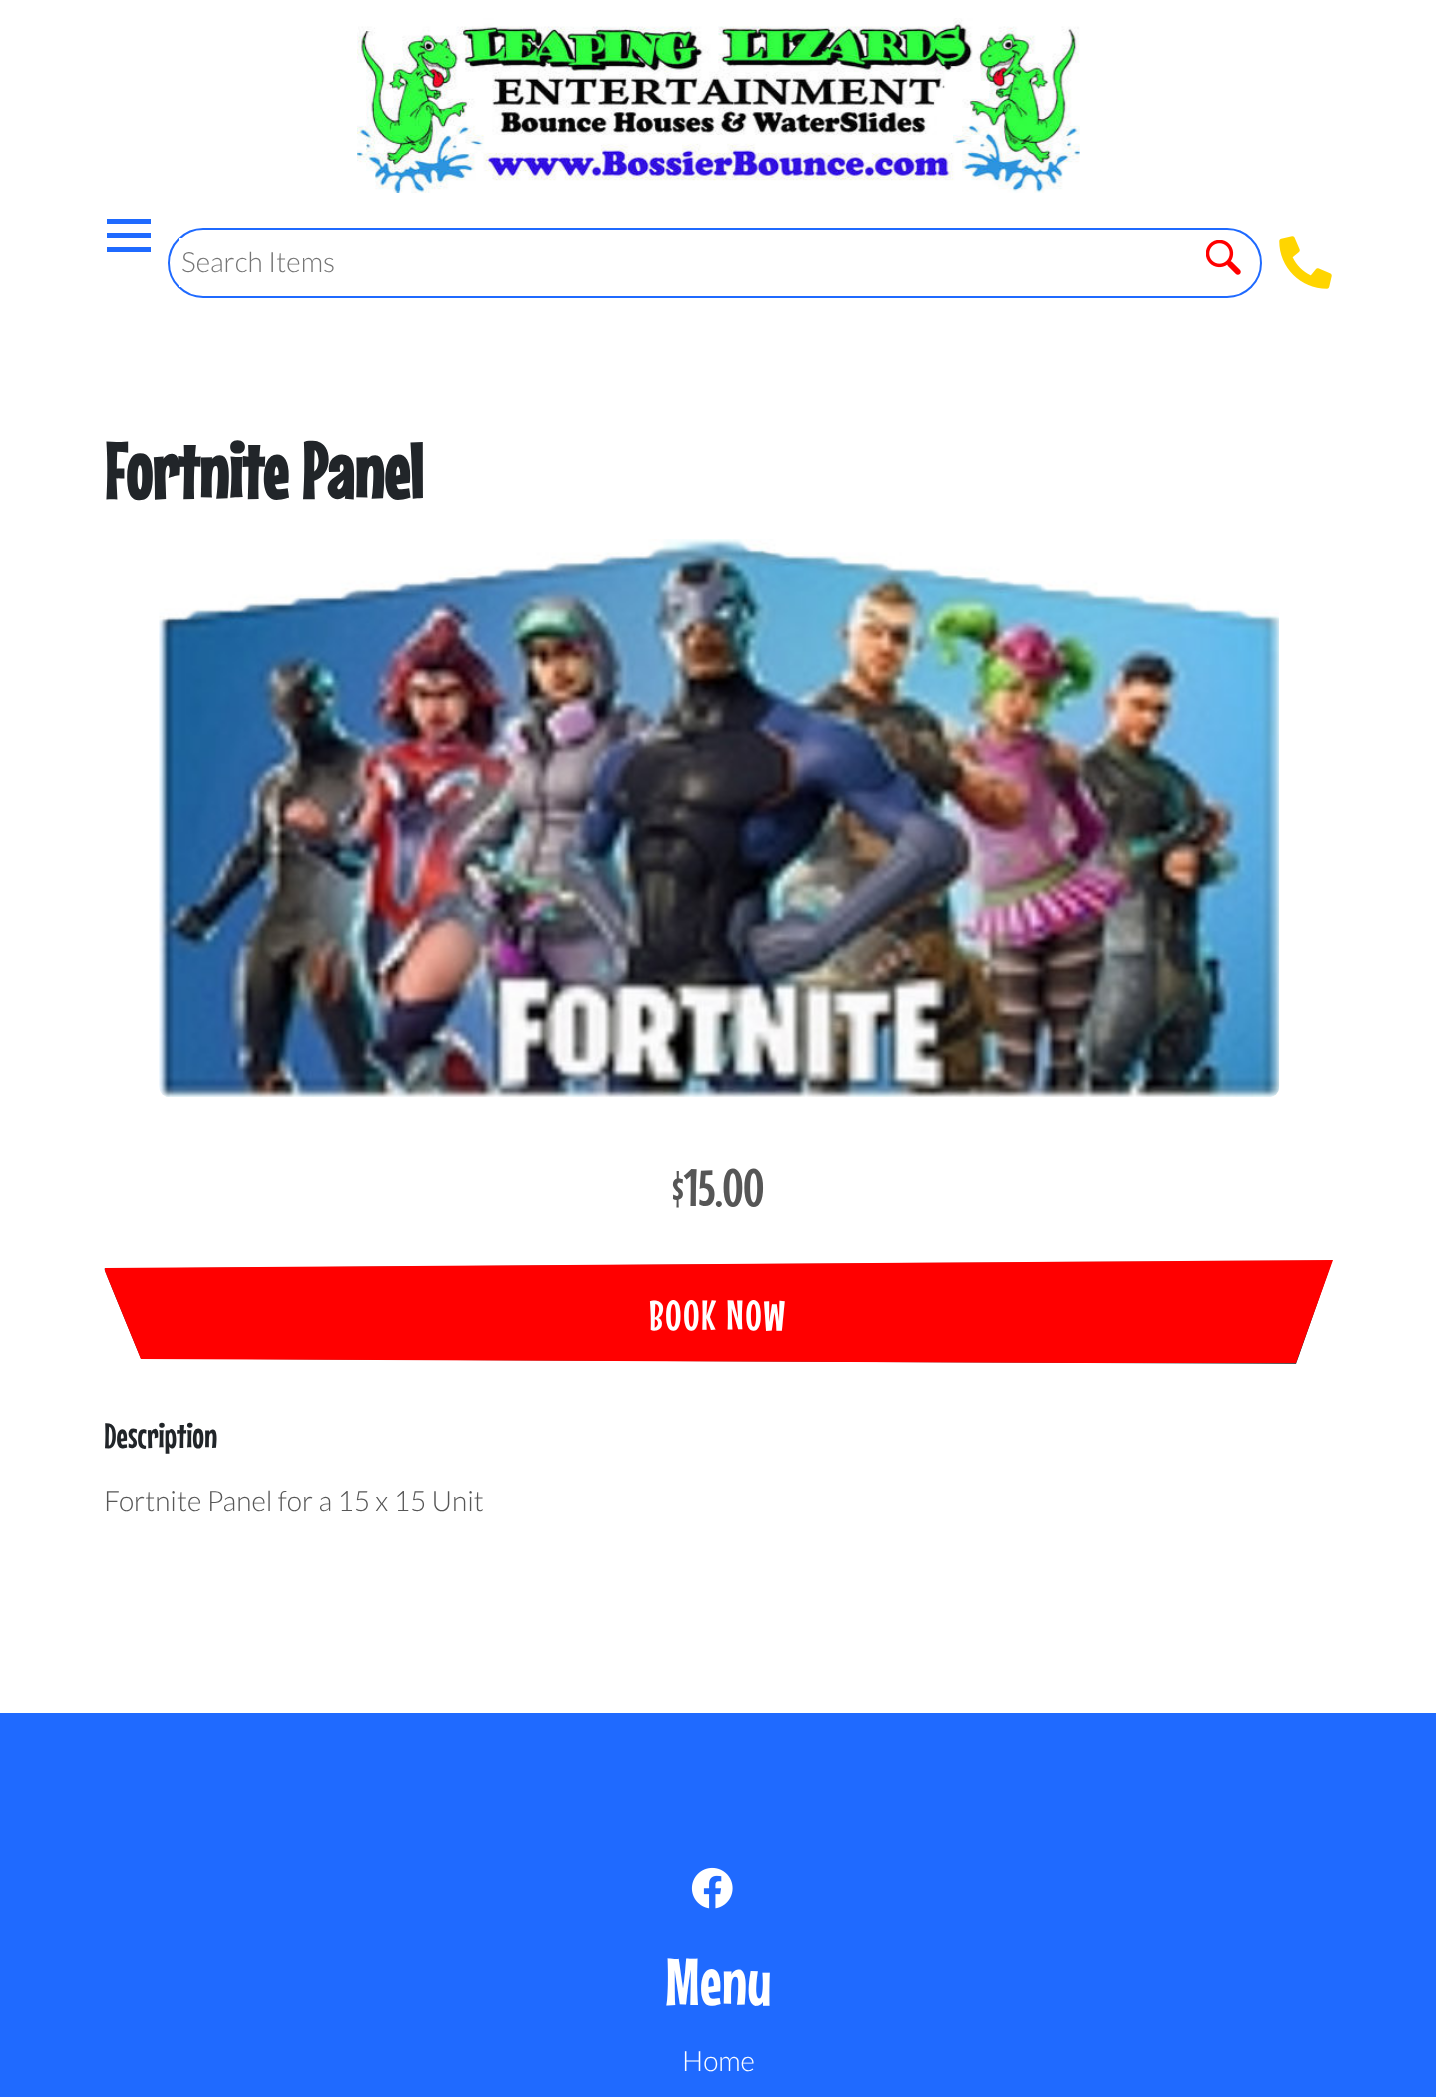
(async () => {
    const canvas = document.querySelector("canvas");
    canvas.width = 1436;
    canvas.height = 2097;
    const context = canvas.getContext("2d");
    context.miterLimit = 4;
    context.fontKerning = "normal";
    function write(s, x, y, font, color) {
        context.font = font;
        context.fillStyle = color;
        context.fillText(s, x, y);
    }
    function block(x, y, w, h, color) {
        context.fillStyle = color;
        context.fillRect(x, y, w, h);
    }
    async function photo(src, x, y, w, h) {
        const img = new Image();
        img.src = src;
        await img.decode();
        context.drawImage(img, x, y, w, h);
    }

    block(0, 0, 1436, 2097, "rgb(255, 255, 255)");
    await photo("media/1.png", 357, 18, 723, 175);
    block(107, 219, 44, 5, "rgb(31, 106, 255)");
    block(107, 233, 44, 5, "rgb(31, 106, 255)");
    block(107, 247, 44, 5, "rgb(31, 106, 255)");
    context.beginPath();
    context.roundRect(169, 229, 1092, 68, 34);
    context.strokeStyle = "rgb(31, 106, 255)";
    context.lineWidth = 2;
    context.stroke();
    block(179, 238, 3, 49, "rgb(255, 255, 255)");
    write("Search Items", 181, 272, "300 28px Lato", "rgb(117, 117, 117)");
    await photo("media/2.png", 1206, 240, 35, 35);
    await photo("media/3.png", 1279, 236, 53, 53);
    write("Fortnite Panel", 104, 499, "bold 78.5px Mouse Memoirs", "rgb(33, 37, 41)");
    await photo("media/4.png", 159, 539, 1121, 558);
    write("$15.00", 672, 1206, "52px Mouse Memoirs", "rgb(86, 86, 86)");
    context.save();
    context.beginPath();
    context.moveTo(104, 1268.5);
    context.lineTo(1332.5, 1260);
    context.lineTo(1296, 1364);
    context.lineTo(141, 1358.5);
    context.closePath();
    context.clip();
    context.fillStyle = "rgb(34, 34, 34)";
    context.filter = "blur(4.5px)";
    context.beginPath();
    context.rect(105, 1264, 1229, 103);
    context.fill();
    context.filter = "none";
    context.restore();
    context.fillStyle = "rgb(255, 0, 0)";
    context.beginPath();
    context.moveTo(105, 1271);
    context.lineTo(105, 1268);
    context.lineTo(1333, 1260);
    context.lineTo(1296, 1363);
    context.lineTo(1088, 1363);
    context.lineTo(141, 1359);
    context.closePath();
    context.fill();
    context.letterSpacing = "1.75px";
    write("BOOK NOW", 649, 1330, "42px Mouse Memoirs", "rgb(255, 255, 255)");
    context.letterSpacing = "0px";
    write("Description", 104, 1448, "35px Mouse Memoirs", "rgb(33, 37, 41)");
    write("Fortnite Panel for a 15 x 15 Unit", 104, 1511, "300 28px Lato", "rgb(86, 86, 86)");
    block(0, 1713, 1436, 384, "rgb(31, 106, 255)");
    await photo("media/5.png", 691, 1867, 42, 42);
    write("Menu", 665, 2005, "67px Mouse Memoirs", "rgb(255, 255, 255)");
    write("Home", 682, 2071, "300 28px Lato", "rgb(255, 255, 255)");
})();
